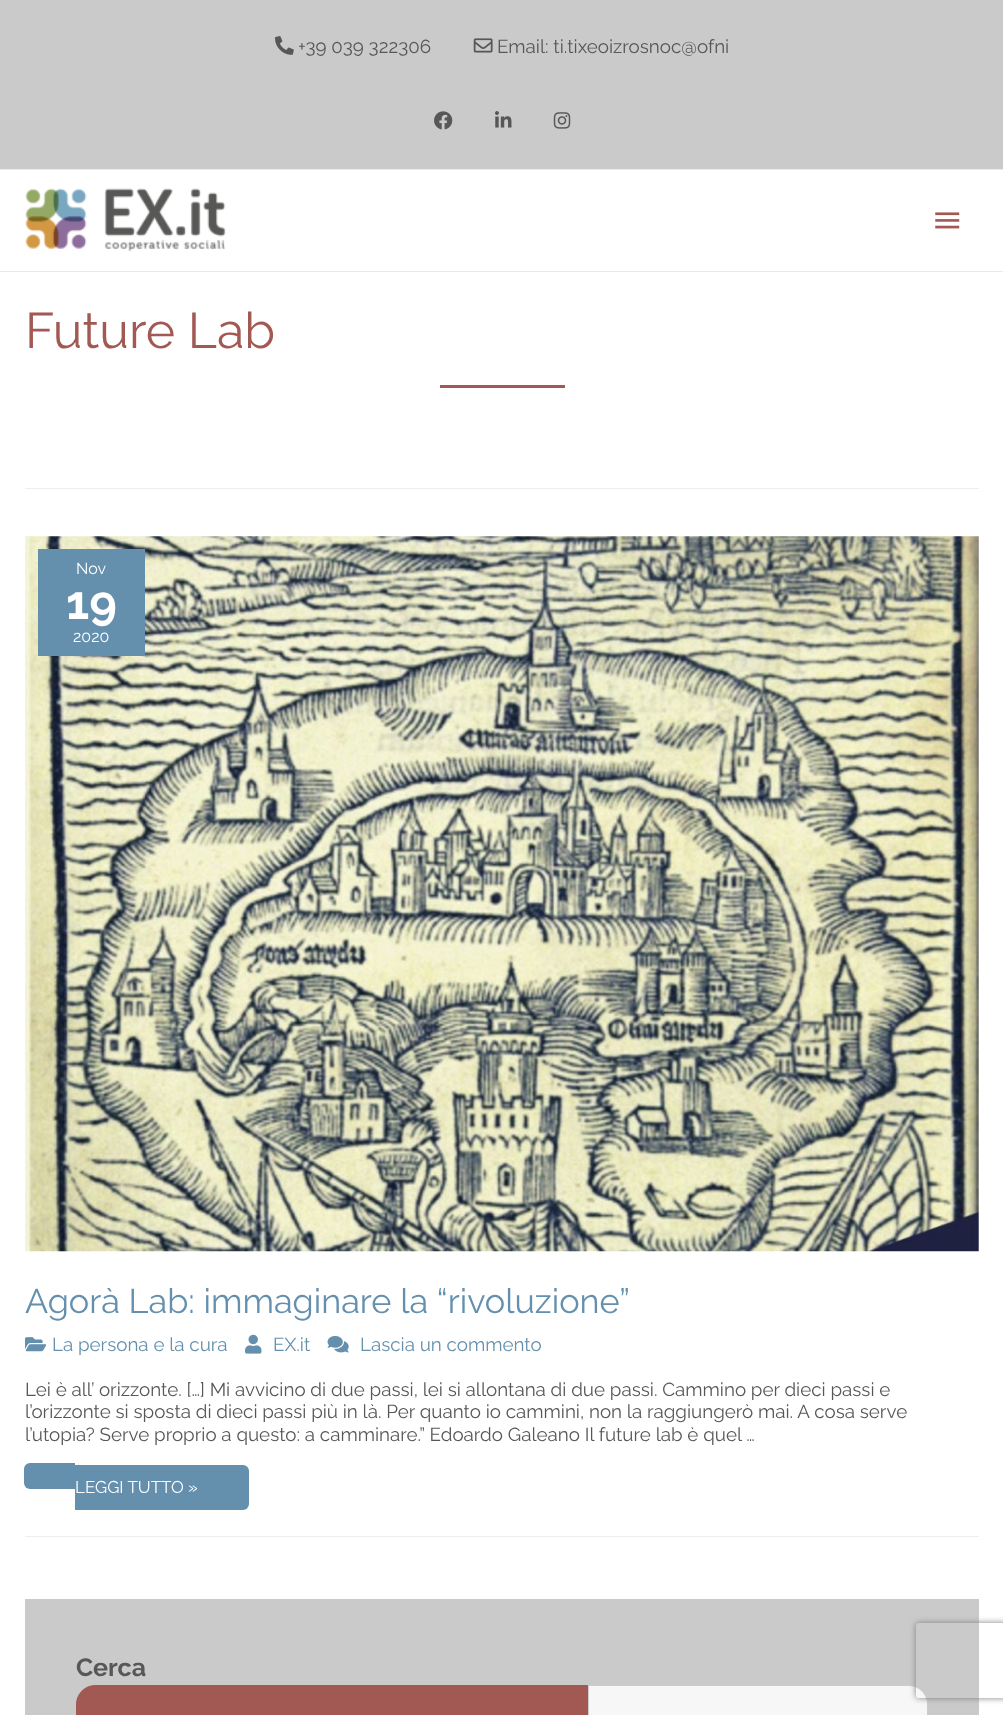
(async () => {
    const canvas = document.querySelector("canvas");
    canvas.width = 1003;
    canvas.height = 1715;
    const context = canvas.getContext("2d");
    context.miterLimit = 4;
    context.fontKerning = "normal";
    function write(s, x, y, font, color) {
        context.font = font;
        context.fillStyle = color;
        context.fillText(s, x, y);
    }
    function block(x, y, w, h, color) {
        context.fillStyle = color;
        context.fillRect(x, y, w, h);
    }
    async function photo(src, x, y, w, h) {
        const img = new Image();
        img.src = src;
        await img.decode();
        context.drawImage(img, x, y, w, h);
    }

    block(0, 0, 1003, 1715, "rgb(255, 255, 255)");
    block(0, 0, 1003, 169, "rgb(202, 202, 202)");
    block(0, 169, 1003, 1, "rgb(234, 234, 234)");
    await photo("media/1.png", 275, 36, 19, 19);
    write("+39 039 322306", 298, 53, "18.8px Raleway", "rgb(87, 87, 87)");
    await photo("media/2.png", 473, 38, 20, 15);
    write("Email: ti.tixeoizrosnoc@ofni", 497, 53, "18.8px Raleway", "rgb(87, 87, 87)");
    await photo("media/3.png", 434, 111, 19, 19);
    await photo("media/4.png", 495, 111, 17, 17);
    await photo("media/5.png", 553, 112, 18, 17);
    block(0, 271, 1003, 1, "rgb(234, 234, 234)");
    await photo("media/6.png", 25, 188, 201, 64);
    await photo("media/7.png", 935, 212, 25, 17);
    block(25, 488, 954, 1, "rgb(238, 238, 238)");
    write("Future Lab", 25, 348, "50px Raleway", "rgb(162, 88, 83)");
    block(440, 385, 125, 3, "rgb(163, 88, 83)");
    block(25, 1536, 954, 1, "rgb(238, 238, 238)");
    await photo("media/8.png", 25, 536, 954, 716);
    block(38, 549, 107, 107, "rgb(100, 144, 174)");
    write("Nov", 76, 574, "16px Raleway", "rgb(255, 255, 255)");
    write("19", 66, 619, "bold 47px Raleway", "rgb(255, 255, 255)");
    write("2020", 73, 642, "16px Raleway", "rgb(255, 255, 255)");
    write("Agorà Lab: immaginare la “rivoluzione”", 25, 1313, "34.25px Raleway", "rgb(100, 144, 174)");
    await photo("media/9.png", 25, 1337, 22, 15);
    write("La persona e la cura", 52, 1351, "18.8px Raleway", "rgb(100, 144, 174)");
    await photo("media/10.png", 245, 1334, 17, 20);
    write("EX.it", 273, 1351, "18.8px Raleway", "rgb(100, 144, 174)");
    await photo("media/11.png", 327, 1336, 22, 17);
    write("Lascia un commento", 360, 1351, "18.8px Raleway", "rgb(100, 144, 174)");
    write("Lei è all’ orizzonte. […] Mi avvicino di due passi, lei si allontana di due passi. Cammino per dieci passi e", 25, 1396, "18.8px Raleway", "rgb(87, 87, 87)");
    write("l’orizzonte si sposta di dieci passi più in là. Per quanto io cammini, non la raggiungerò mai. A cosa serve", 25, 1418, "18.8px Raleway", "rgb(87, 87, 87)");
    write("l’utopia? Serve proprio a questo: a camminare.” Edoardo Galeano Il future lab è quel …", 25, 1441, "18.8px Raleway", "rgb(87, 87, 87)");
    context.fillStyle = "rgb(100, 144, 174)";
    context.beginPath();
    context.roundRect(75, 1465, 174, 45, [0, 6, 6, 0]);
    context.fill();
    write("LEGGI TUTTO »", 75, 1493, "17px Raleway", "rgb(255, 255, 255)");
    context.fillStyle = "rgb(100, 144, 174)";
    context.beginPath();
    context.roundRect(24, 1463, 51, 26, [6, 0, 0, 6]);
    context.fill();
    block(25, 1599, 954, 116, "rgb(202, 202, 202)");
    write("Cerca", 76, 1676, "bold 25px Raleway", "rgb(87, 87, 87)");
    context.fillStyle = "rgb(162, 88, 83)";
    context.beginPath();
    context.moveTo(95, 1685.5);
    context.lineTo(587.5, 1685.5);
    context.lineTo(587.5, 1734.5);
    context.lineTo(95, 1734.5);
    context.bezierCurveTo(85, 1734.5, 76.5, 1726, 76.5, 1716);
    context.lineTo(76.5, 1704);
    context.bezierCurveTo(76.5, 1694, 85, 1685.5, 95, 1685.5);
    context.closePath();
    context.fill();
    context.strokeStyle = "rgb(162, 88, 83)";
    context.stroke();
    context.fillStyle = "rgb(247, 247, 247)";
    context.beginPath();
    context.moveTo(588.5, 1685.5);
    context.lineTo(909, 1685.5);
    context.bezierCurveTo(919, 1685.5, 927.5, 1694, 927.5, 1704);
    context.lineTo(927.5, 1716);
    context.bezierCurveTo(927.5, 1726, 919, 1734.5, 909, 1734.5);
    context.lineTo(588.5, 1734.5);
    context.closePath();
    context.fill();
    context.strokeStyle = "rgb(204, 204, 204)";
    context.stroke();
    context.save();
    context.beginPath();
    context.moveTo(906, 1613);
    context.lineTo(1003, 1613);
    context.lineTo(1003, 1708);
    context.lineTo(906, 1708);
    context.closePath();
    context.moveTo(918.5, 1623);
    context.lineTo(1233.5, 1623);
    context.bezierCurveTo(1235, 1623, 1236, 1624, 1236, 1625.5);
    context.lineTo(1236, 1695.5);
    context.bezierCurveTo(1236, 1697, 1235, 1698, 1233.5, 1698);
    context.lineTo(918.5, 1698);
    context.bezierCurveTo(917, 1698, 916, 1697, 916, 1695.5);
    context.lineTo(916, 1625.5);
    context.bezierCurveTo(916, 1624, 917, 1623, 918.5, 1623);
    context.closePath();
    context.clip("evenodd");
    context.fillStyle = "rgb(128, 128, 128)";
    context.filter = "blur(3px)";
    context.beginPath();
    context.roundRect(916, 1623, 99, 75, 2.5);
    context.fill();
    context.filter = "none";
    context.restore();
})();
